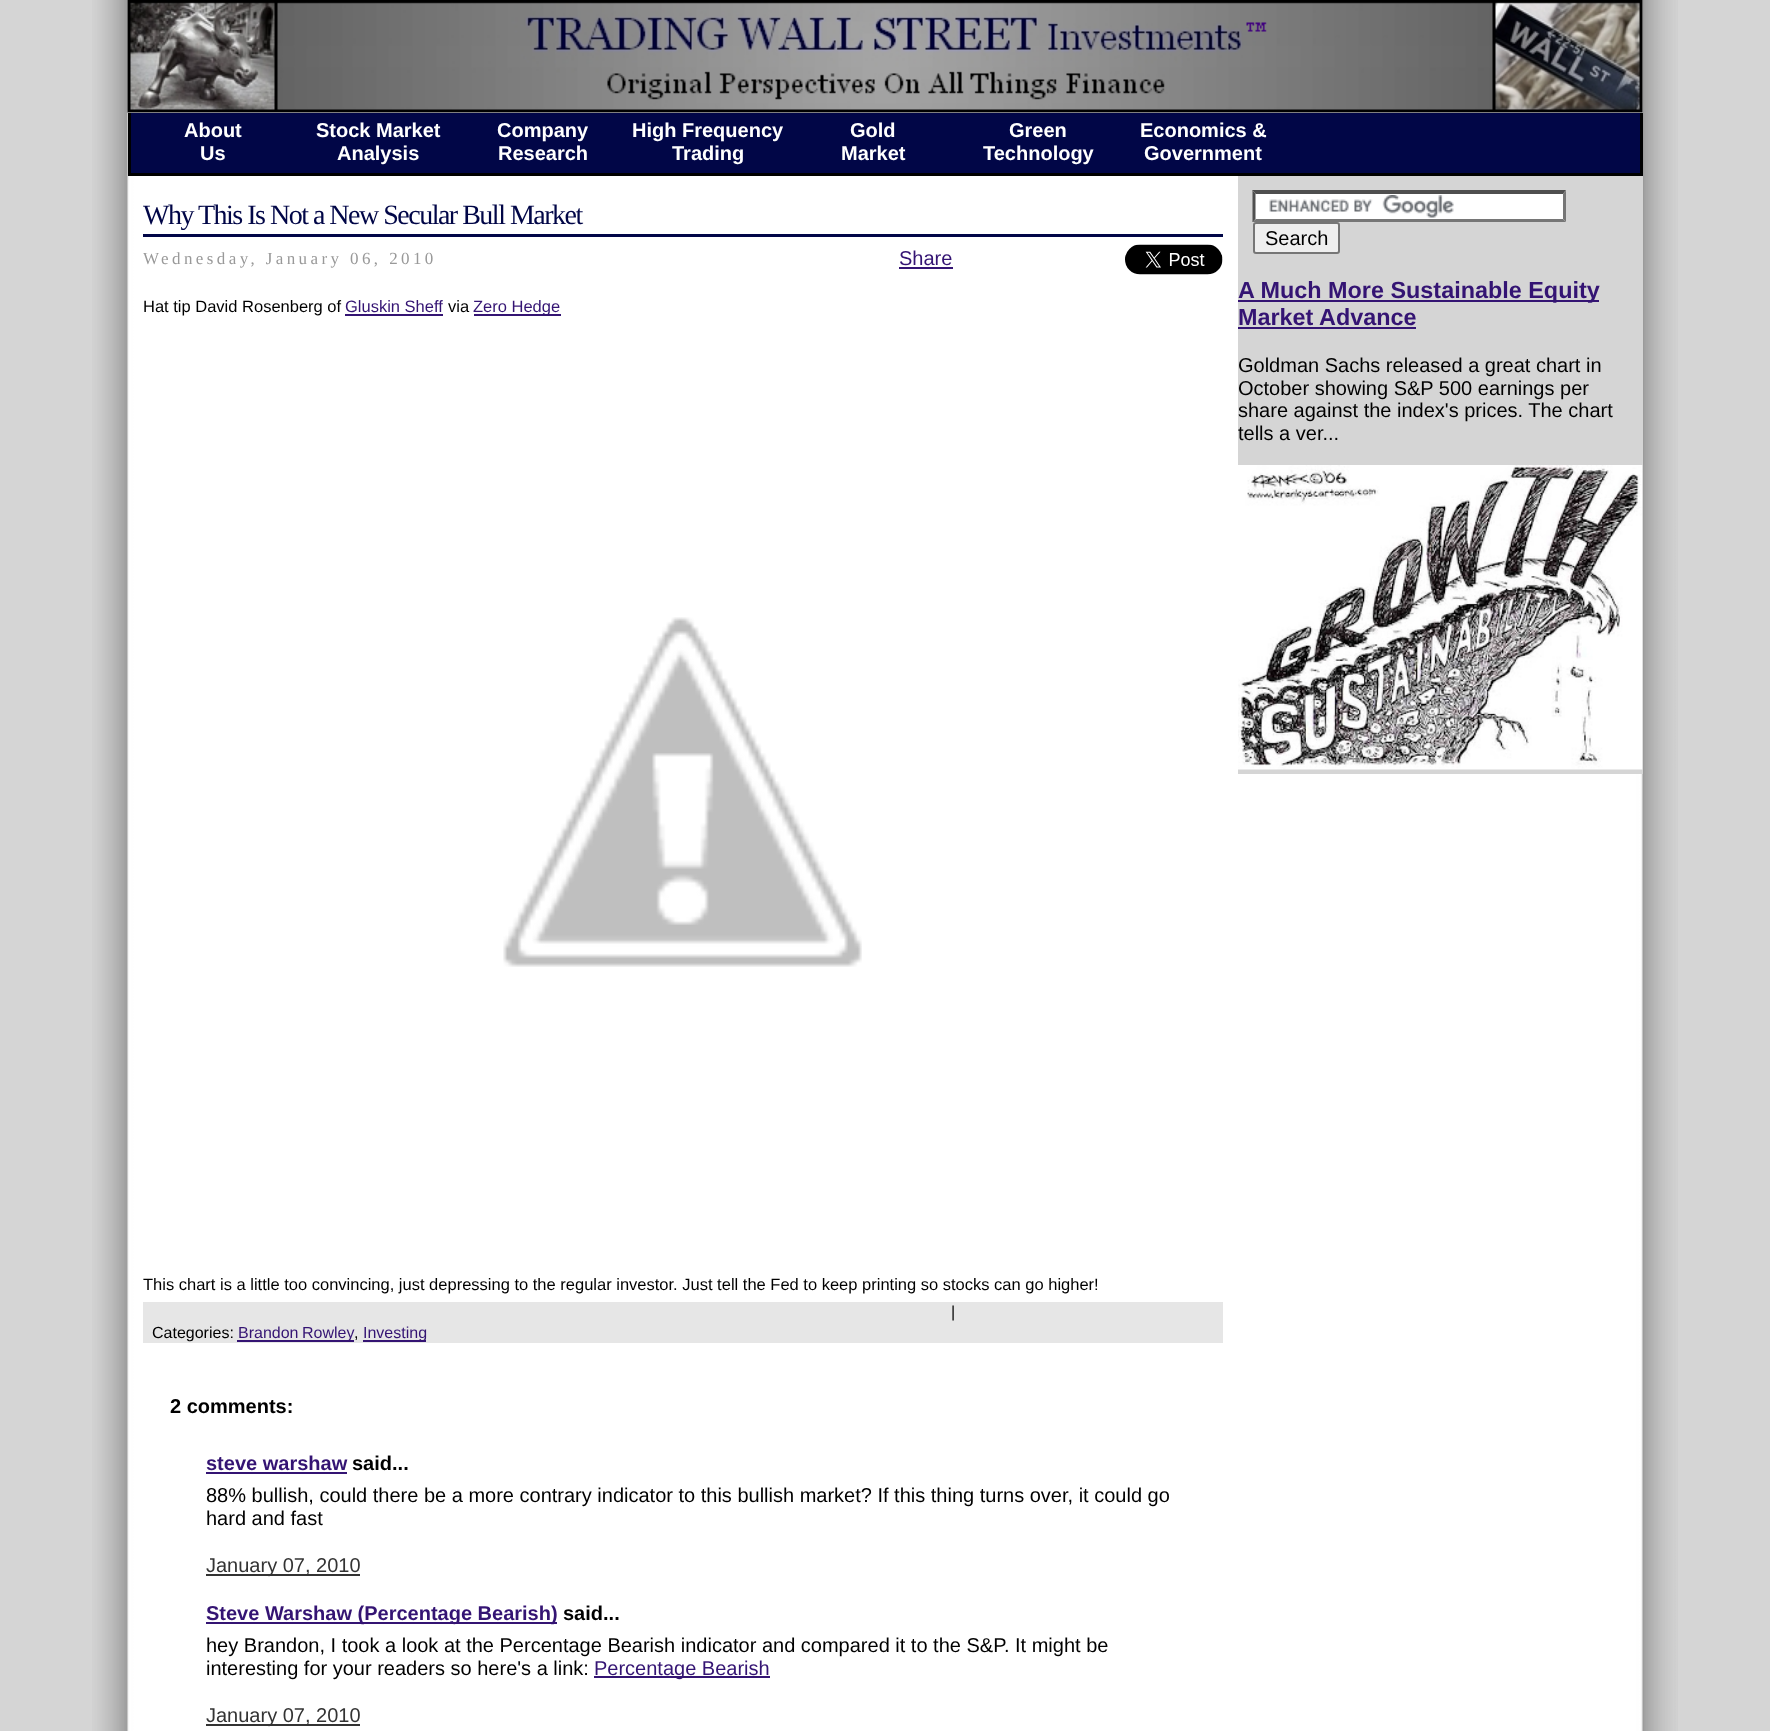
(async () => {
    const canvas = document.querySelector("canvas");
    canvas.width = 1770;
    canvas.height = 1731;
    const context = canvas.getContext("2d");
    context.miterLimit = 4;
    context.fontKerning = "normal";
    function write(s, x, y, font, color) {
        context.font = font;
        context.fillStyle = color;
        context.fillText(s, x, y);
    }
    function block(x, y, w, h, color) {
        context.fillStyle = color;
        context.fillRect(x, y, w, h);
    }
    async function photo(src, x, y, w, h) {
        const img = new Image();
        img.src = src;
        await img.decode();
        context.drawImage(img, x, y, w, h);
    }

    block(0, 0, 1770, 1731, "rgb(213, 213, 213)");
    await photo("media/1.png", 92, 0, 1586, 1731);
    await photo("media/2.png", 127, 0, 1516, 113);
    block(131, 113, 1509, 60, "rgb(1, 6, 71)");
    block(1640, 113, 3, 63, "rgb(0, 0, 0)");
    block(128, 173, 1515, 3, "rgb(0, 0, 0)");
    block(128, 113, 3, 63, "rgb(0, 0, 0)");
    write("About", 184, 137, "bold 20px Liberation Sans", "rgb(255, 255, 255)");
    write("Us", 200, 160, "bold 20px Liberation Sans", "rgb(255, 255, 255)");
    write("Stock Market", 316, 137, "bold 20px Liberation Sans", "rgb(255, 255, 255)");
    write("Analysis", 337, 160, "bold 20px Liberation Sans", "rgb(255, 255, 255)");
    write("Company", 497, 137, "bold 20px Liberation Sans", "rgb(255, 255, 255)");
    write("Research", 498, 160, "bold 20px Liberation Sans", "rgb(255, 255, 255)");
    write("High Frequency", 632, 137, "bold 20px Liberation Sans", "rgb(255, 255, 255)");
    write("Trading", 672, 160, "bold 20px Liberation Sans", "rgb(255, 255, 255)");
    write("Gold", 850, 137, "bold 20px Liberation Sans", "rgb(255, 255, 255)");
    write("Market", 841, 160, "bold 20px Liberation Sans", "rgb(255, 255, 255)");
    write("Green", 1009, 137, "bold 20px Liberation Sans", "rgb(255, 255, 255)");
    write("Technology", 983, 160, "bold 20px Liberation Sans", "rgb(255, 255, 255)");
    write("Economics &", 1140, 137, "bold 20px Liberation Sans", "rgb(255, 255, 255)");
    write("Government", 1144, 160, "bold 20px Liberation Sans", "rgb(255, 255, 255)");
    block(143, 234, 1080, 3, "rgb(1, 6, 71)");
    context.letterSpacing = "-1.5px";
    write("Why This Is Not a New Secular Bull Market", 143, 224, "28px Liberation Serif", "rgb(1, 6, 71)");
    context.letterSpacing = "3.4px";
    write("Wednesday, January 06, 2010", 143, 264, "17px Liberation Serif", "rgb(153, 153, 153)");
    context.letterSpacing = "0px";
    write("Share", 899, 265, "20px Liberation Sans", "rgb(52, 20, 115)");
    block(899, 267, 54, 2, "rgb(52, 20, 115)");
    await photo("media/3.png", 1125, 244, 98, 31);
    write("Hat tip David Rosenberg of", 143, 312, "16.5px Liberation Sans", "rgb(0, 0, 0)");
    write("Gluskin Sheff", 345, 312, "16.5px Liberation Sans", "rgb(52, 20, 115)");
    block(345, 314, 98, 2, "rgb(52, 20, 115)");
    write("via", 448, 312, "16.5px Liberation Sans", "rgb(0, 0, 0)");
    block(474, 314, 87, 2, "rgb(52, 20, 115)");
    write("Zero Hedge", 473, 312, "16.5px Liberation Sans", "rgb(52, 20, 115)");
    await photo("media/4.png", 503, 617, 359, 350);
    write("This chart is a little too convincing, just depressing to the regular investor. Just tell the Fed to keep printing so stocks can go higher!", 143, 1290, "16.5px Liberation Sans", "rgb(0, 0, 0)");
    block(143, 1302, 1080, 41, "rgb(230, 230, 230)");
    write("|", 951, 1317, "16px Liberation Sans", "rgb(0, 0, 0)");
    write("Categories:", 152, 1338, "16px Liberation Sans", "rgb(0, 0, 0)");
    block(237, 1340, 117, 2, "rgb(52, 20, 115)");
    context.wordSpacing = "-1px";
    write("Brandon Rowley", 238, 1338, "16px Liberation Sans", "rgb(52, 20, 115)");
    context.wordSpacing = "0px";
    write(",", 354, 1338, "16px Liberation Sans", "rgb(0, 0, 0)");
    block(363, 1340, 63, 2, "rgb(52, 20, 115)");
    write("Investing", 363, 1338, "16px Liberation Sans", "rgb(52, 20, 115)");
    write("2 comments:", 170, 1413, "bold 20px Liberation Sans", "rgb(0, 0, 0)");
    write("steve warshaw", 206, 1470, "bold 20px Liberation Sans", "rgb(52, 20, 115)");
    block(206, 1472, 141, 2, "rgb(52, 20, 115)");
    write("said...", 352, 1470, "bold 20px Liberation Sans", "rgb(0, 0, 0)");
    write("88% bullish, could there be a more contrary indicator to this bullish market? If this thing turns over, it could go", 206, 1502, "20px Liberation Sans", "rgb(0, 0, 0)");
    write("hard and fast", 206, 1525, "20px Liberation Sans", "rgb(0, 0, 0)");
    block(206, 1574, 154, 2, "rgb(51, 51, 51)");
    write("January 07, 2010", 206, 1572, "20px Liberation Sans", "rgb(51, 51, 51)");
    block(206, 1622, 351, 2, "rgb(52, 20, 115)");
    write("Steve Warshaw (Percentage Bearish)", 206, 1620, "bold 20px Liberation Sans", "rgb(52, 20, 115)");
    write("said...", 563, 1620, "bold 20px Liberation Sans", "rgb(0, 0, 0)");
    write("hey Brandon, I took a look at the Percentage Bearish indicator and compared it to the S&P. It might be", 206, 1652, "20px Liberation Sans", "rgb(0, 0, 0)");
    write("interesting for your readers so here's a link:", 206, 1675, "20px Liberation Sans", "rgb(0, 0, 0)");
    block(594, 1676, 176, 2, "rgb(52, 20, 115)");
    write("Percentage Bearish", 594, 1675, "20px Liberation Sans", "rgb(52, 20, 115)");
    block(206, 1724, 154, 2, "rgb(51, 51, 51)");
    write("January 07, 2010", 206, 1722, "20px Liberation Sans", "rgb(51, 51, 51)");
    block(1238, 176, 405, 598, "rgb(213, 213, 213)");
    block(1253, 191, 313, 31, "rgb(255, 255, 255)");
    await photo("media/5.png", 1269, 195, 185, 23);
    context.fillStyle = "rgb(79, 79, 79)";
    context.beginPath();
    context.moveTo(1252, 190);
    context.lineTo(1566, 190);
    context.lineTo(1563, 194);
    context.lineTo(1256, 194);
    context.closePath();
    context.fill();
    context.fillStyle = "rgb(118, 118, 118)";
    context.beginPath();
    context.moveTo(1566, 190.5);
    context.lineTo(1566, 222);
    context.lineTo(1563, 219);
    context.lineTo(1563, 193.5);
    context.closePath();
    context.fill();
    context.beginPath();
    context.moveTo(1566, 222);
    context.lineTo(1252, 222);
    context.lineTo(1256, 219);
    context.lineTo(1563, 219);
    context.closePath();
    context.fill();
    context.fillStyle = "rgb(79, 79, 79)";
    context.beginPath();
    context.moveTo(1252.5, 222);
    context.lineTo(1252.5, 190.5);
    context.lineTo(1255.5, 193.5);
    context.lineTo(1255.5, 219);
    context.closePath();
    context.fill();
    context.fillStyle = "rgb(239, 239, 239)";
    context.beginPath();
    context.roundRect(1254, 223, 85, 30, 2);
    context.fill();
    context.strokeStyle = "rgb(118, 118, 118)";
    context.lineWidth = 2;
    context.stroke();
    write("Search", 1265, 245, "20px Liberation Sans", "rgb(0, 0, 0)");
    block(1238, 300, 361, 2, "rgb(52, 20, 115)");
    write("A Much More Sustainable Equity", 1238, 298, "bold 23.4px Liberation Sans", "rgb(52, 20, 115)");
    write("Market Advance", 1238, 325, "bold 23.4px Liberation Sans", "rgb(52, 20, 115)");
    block(1238, 327, 178, 2, "rgb(52, 20, 115)");
    write("Goldman Sachs released a great chart in", 1238, 372, "20px Liberation Sans", "rgb(0, 0, 0)");
    write("October showing S&P 500 earnings per", 1238, 395, "20px Liberation Sans", "rgb(0, 0, 0)");
    write("share against the index's prices. The chart", 1238, 417, "20px Liberation Sans", "rgb(0, 0, 0)");
    write("tells a ver...", 1238, 440, "20px Liberation Sans", "rgb(0, 0, 0)");
    await photo("media/6.png", 1238, 465, 405, 305);
})();
